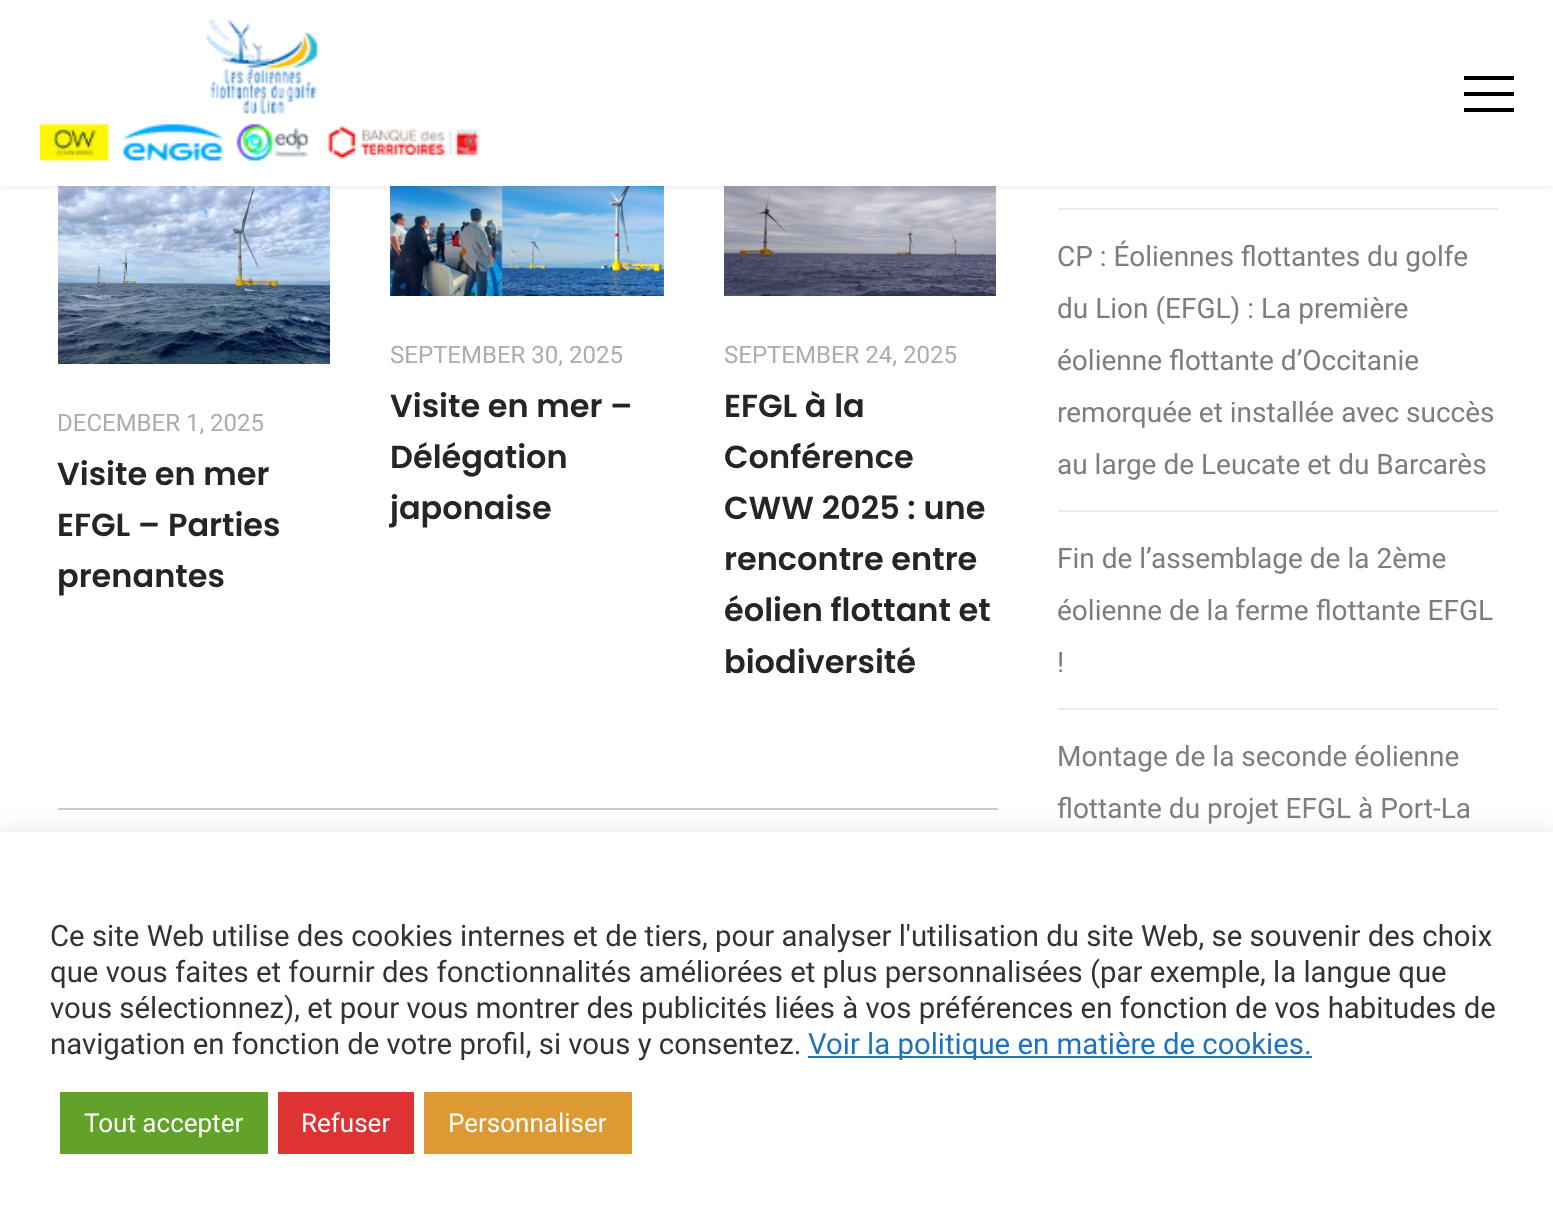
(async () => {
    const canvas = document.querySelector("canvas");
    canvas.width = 1553;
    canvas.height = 1214;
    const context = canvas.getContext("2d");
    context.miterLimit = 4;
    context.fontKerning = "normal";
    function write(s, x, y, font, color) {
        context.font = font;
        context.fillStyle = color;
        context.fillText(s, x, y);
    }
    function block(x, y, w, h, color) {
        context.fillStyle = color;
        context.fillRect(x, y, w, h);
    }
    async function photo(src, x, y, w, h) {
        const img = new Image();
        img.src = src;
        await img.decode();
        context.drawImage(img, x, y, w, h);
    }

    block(0, 0, 1553, 1214, "rgb(255, 255, 255)");
    await photo("media/2.png", 58, 186, 272, 178);
    await photo("media/3.png", 390, 186, 274, 110);
    await photo("media/4.png", 724, 186, 272, 110);
    context.fillStyle = "rgba(0, 0, 0, 0.1)";
    context.filter = "blur(4px)";
    context.beginPath();
    context.rect(0, 0, 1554, 186);
    context.fill();
    context.filter = "none";
    block(0, 0, 1553, 186, "rgb(255, 255, 255)");
    await photo("media/1.png", 40, 20, 440, 141);
    block(1464, 76, 50, 4, "rgb(0, 0, 0)");
    block(1464, 92, 50, 4, "rgb(0, 0, 0)");
    block(1464, 108, 50, 4, "rgb(0, 0, 0)");
    block(58, 808, 940, 2, "rgb(204, 204, 204)");
    write("DECEMBER 1, 2025", 57, 431, "24px Roboto", "rgb(172, 172, 172)");
    write("Visite en mer", 57, 485, "600 32px Poppins", "rgb(37, 37, 37)");
    write("EFGL – Parties", 57, 536, "600 32px Poppins", "rgb(37, 37, 37)");
    write("prenantes", 57, 587, "600 32px Poppins", "rgb(37, 37, 37)");
    write("SEPTEMBER 30, 2025", 390, 363, "24px Roboto", "rgb(172, 172, 172)");
    write("Visite en mer –", 390, 417, "600 32px Poppins", "rgb(37, 37, 37)");
    write("Délégation", 390, 468, "600 32px Poppins", "rgb(37, 37, 37)");
    write("japonaise", 390, 519, "600 32px Poppins", "rgb(37, 37, 37)");
    write("SEPTEMBER 24, 2025", 724, 363, "24px Roboto", "rgb(172, 172, 172)");
    write("EFGL à la", 724, 417, "600 32px Poppins", "rgb(37, 37, 37)");
    write("Conférence", 724, 468, "600 32px Poppins", "rgb(37, 37, 37)");
    write("CWW 2025 : une", 724, 519, "600 32px Poppins", "rgb(37, 37, 37)");
    write("rencontre entre", 724, 570, "600 32px Poppins", "rgb(37, 37, 37)");
    write("éolien flottant et", 724, 621, "600 32px Poppins", "rgb(37, 37, 37)");
    write("biodiversité", 724, 673, "600 32px Poppins", "rgb(37, 37, 37)");
    block(1058, 208, 440, 2, "rgb(235, 235, 235)");
    write("CP : Éoliennes flottantes du golfe", 1057, 266, "28px Roboto", "rgb(125, 125, 125)");
    write("du Lion (EFGL) : La première", 1057, 318, "28px Roboto", "rgb(125, 125, 125)");
    write("éolienne flottante d’Occitanie", 1057, 370, "28px Roboto", "rgb(125, 125, 125)");
    write("remorquée et installée avec succès", 1057, 422, "28px Roboto", "rgb(125, 125, 125)");
    write("au large de Leucate et du Barcarès", 1057, 474, "28px Roboto", "rgb(125, 125, 125)");
    block(1058, 510, 440, 2, "rgb(235, 235, 235)");
    write("Fin de l’assemblage de la 2ème", 1057, 568, "28px Roboto", "rgb(125, 125, 125)");
    write("éolienne de la ferme flottante EFGL", 1057, 620, "28px Roboto", "rgb(125, 125, 125)");
    write("!", 1057, 672, "28px Roboto", "rgb(125, 125, 125)");
    block(1058, 708, 440, 2, "rgb(235, 235, 235)");
    write("Montage de la seconde éolienne", 1057, 766, "28px Roboto", "rgb(125, 125, 125)");
    write("flottante du projet EFGL à Port-La", 1057, 818, "28px Roboto", "rgb(125, 125, 125)");
    context.fillStyle = "rgba(172, 171, 171, 0.3)";
    context.filter = "blur(10px)";
    context.beginPath();
    context.rect(0, 830, 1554, 382);
    context.fill();
    context.filter = "none";
    block(0, 832, 1553, 382, "rgb(255, 255, 255)");
    write("Ce site Web utilise des cookies internes et de tiers, pour analyser l'utilisation du site Web, se souvenir des choix", 50, 946, "29.35px Roboto", "rgb(51, 51, 51)");
    write("que vous faites et fournir des fonctionnalités améliorées et plus personnalisées (par exemple, la langue que", 50, 982, "29.35px Roboto", "rgb(51, 51, 51)");
    write("vous sélectionnez), et pour vous montrer des publicités liées à vos préférences en fonction de vos habitudes de", 50, 1018, "29.35px Roboto", "rgb(51, 51, 51)");
    write("navigation en fonction de votre profil, si vous y consentez.", 50, 1054, "29.35px Roboto", "rgb(51, 51, 51)");
    block(808, 1056, 504, 2, "rgb(30, 115, 190)");
    write("Voir la politique en matière de cookies.", 808, 1054, "29.35px Roboto", "rgb(30, 115, 190)");
    block(60, 1092, 208, 62, "rgb(97, 162, 41)");
    write("Tout accepter", 84, 1132, "26px Roboto", "rgb(255, 255, 255)");
    block(278, 1092, 136, 62, "rgb(221, 51, 51)");
    write("Refuser", 301, 1132, "26px Roboto", "rgb(255, 255, 255)");
    block(424, 1092, 208, 62, "rgb(221, 153, 51)");
    write("Personnaliser", 448, 1132, "26px Roboto", "rgb(255, 255, 255)");
})();
